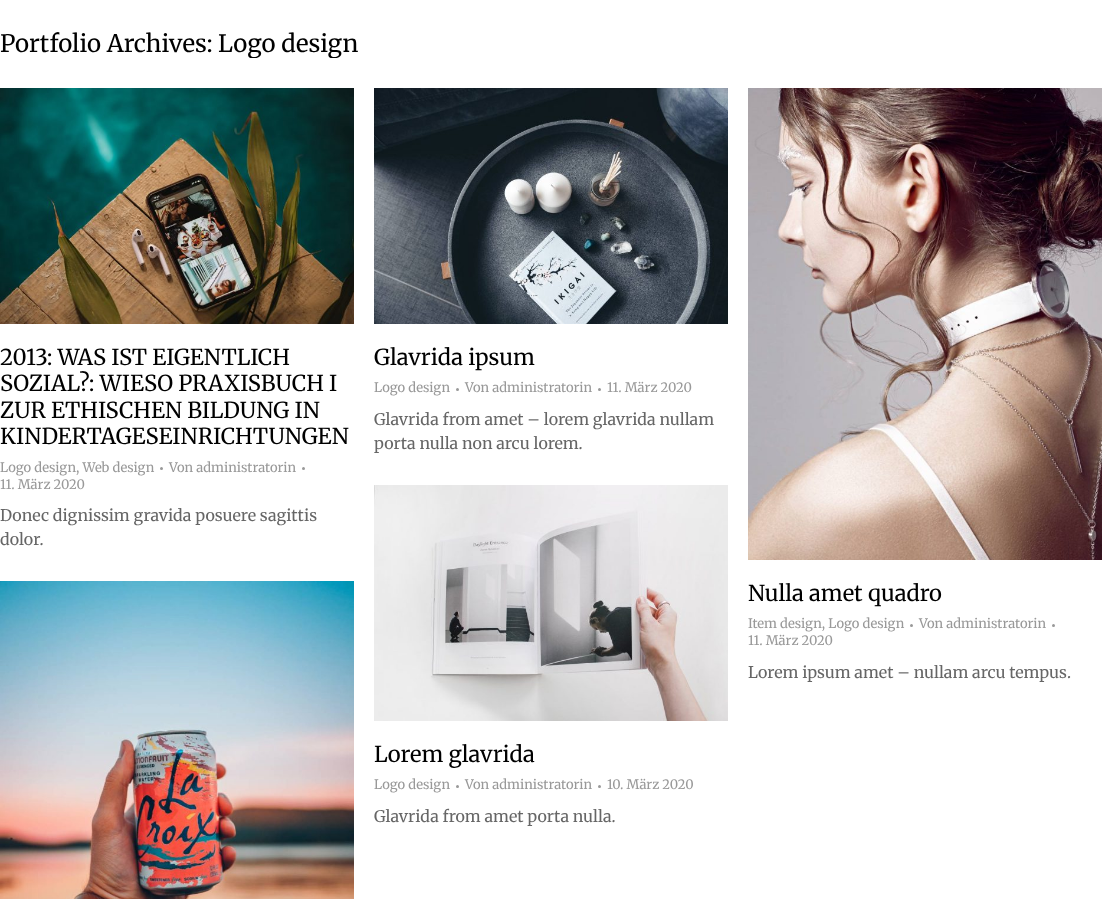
(async () => {
    const canvas = document.querySelector("canvas");
    canvas.width = 1105;
    canvas.height = 899;
    const context = canvas.getContext("2d");
    context.miterLimit = 4;
    context.fontKerning = "normal";
    function write(s, x, y, font, color) {
        context.font = font;
        context.fillStyle = color;
        context.fillText(s, x, y);
    }
    function block(x, y, w, h, color) {
        context.fillStyle = color;
        context.fillRect(x, y, w, h);
    }
    async function photo(src, x, y, w, h) {
        const img = new Image();
        img.src = src;
        await img.decode();
        context.drawImage(img, x, y, w, h);
    }

    block(0, 0, 1105, 899, "rgb(255, 255, 255)");
    write("Portfolio Archives:", 0, 52, "24px Merriweather", "rgb(0, 0, 0)");
    context.save();
    context.beginPath();
    context.rect(0, 30, 359, 28);
    context.clip();
    write("Logo design", 218, 52, "24px Merriweather", "rgb(0, 0, 0)");
    context.restore();
    await photo("media/1.png", 0, 88, 354, 236);
    write("2013: WAS IST EIGENTLICH", 0, 365, "22px Merriweather", "rgb(0, 0, 0)");
    write("SOZIAL?: WIESO PRAXISBUCH I", 0, 391, "22px Merriweather", "rgb(0, 0, 0)");
    write("ZUR ETHISCHEN BILDUNG IN", 0, 418, "22px Merriweather", "rgb(0, 0, 0)");
    write("KINDERTAGESEINRICHTUNGEN", 0, 444, "22px Merriweather", "rgb(0, 0, 0)");
    write("Logo design, Web design", 0, 472, "13px Merriweather", "rgb(153, 153, 153)");
    context.beginPath();
    context.arc(161.5, 468.5, 1.5, 0, Math.PI * 2);
    context.fill();
    write("Von administratorin", 169, 472, "13px Merriweather", "rgb(153, 153, 153)");
    context.beginPath();
    context.arc(303.5, 468.5, 1.5, 0, Math.PI * 2);
    context.fill();
    write("11. März 2020", 0, 489, "13px Merriweather", "rgb(153, 153, 153)");
    write("Donec dignissim gravida posuere sagittis", 0, 521, "16px Merriweather", "rgb(102, 102, 102)");
    write("dolor.", 0, 545, "16px Merriweather", "rgb(102, 102, 102)");
    await photo("media/2.png", 374, 88, 354, 236);
    write("Glavrida ipsum", 374, 365, "22px Merriweather", "rgb(0, 0, 0)");
    write("Logo design", 374, 392, "13px Merriweather", "rgb(153, 153, 153)");
    context.beginPath();
    context.arc(457.5, 389.5, 1.5, 0, Math.PI * 2);
    context.fill();
    write("Von administratorin", 465, 392, "13px Merriweather", "rgb(153, 153, 153)");
    context.beginPath();
    context.arc(599.5, 389.5, 1.5, 0, Math.PI * 2);
    context.fill();
    write("11. März 2020", 607, 392, "13px Merriweather", "rgb(153, 153, 153)");
    write("Glavrida from amet – lorem glavrida nullam", 374, 425, "16px Merriweather", "rgb(102, 102, 102)");
    write("porta nulla non arcu lorem.", 374, 449, "16px Merriweather", "rgb(102, 102, 102)");
    await photo("media/3.png", 0, 581, 354, 318);
    await photo("media/4.png", 748, 88, 354, 472);
    write("Nulla amet quadro", 748, 601, "22px Merriweather", "rgb(0, 0, 0)");
    write("Item design, Logo design", 748, 628, "13px Merriweather", "rgb(153, 153, 153)");
    context.beginPath();
    context.arc(911.5, 625.5, 1.5, 0, Math.PI * 2);
    context.fill();
    write("Von administratorin", 919, 628, "13px Merriweather", "rgb(153, 153, 153)");
    context.beginPath();
    context.arc(1053.5, 625.5, 1.5, 0, Math.PI * 2);
    context.fill();
    write("11. März 2020", 748, 645, "13px Merriweather", "rgb(153, 153, 153)");
    write("Lorem ipsum amet – nullam arcu tempus.", 748, 678, "16px Merriweather", "rgb(102, 102, 102)");
    await photo("media/5.png", 374, 485, 354, 236);
    write("Lorem glavrida", 374, 762, "22px Merriweather", "rgb(0, 0, 0)");
    write("Logo design", 374, 789, "13px Merriweather", "rgb(153, 153, 153)");
    context.beginPath();
    context.arc(457.5, 786.5, 1.5, 0, Math.PI * 2);
    context.fill();
    write("Von administratorin", 465, 789, "13px Merriweather", "rgb(153, 153, 153)");
    context.beginPath();
    context.arc(599.5, 786.5, 1.5, 0, Math.PI * 2);
    context.fill();
    write("10. März 2020", 607, 789, "13px Merriweather", "rgb(153, 153, 153)");
    write("Glavrida from amet porta nulla.", 374, 822, "16px Merriweather", "rgb(102, 102, 102)");
})();
